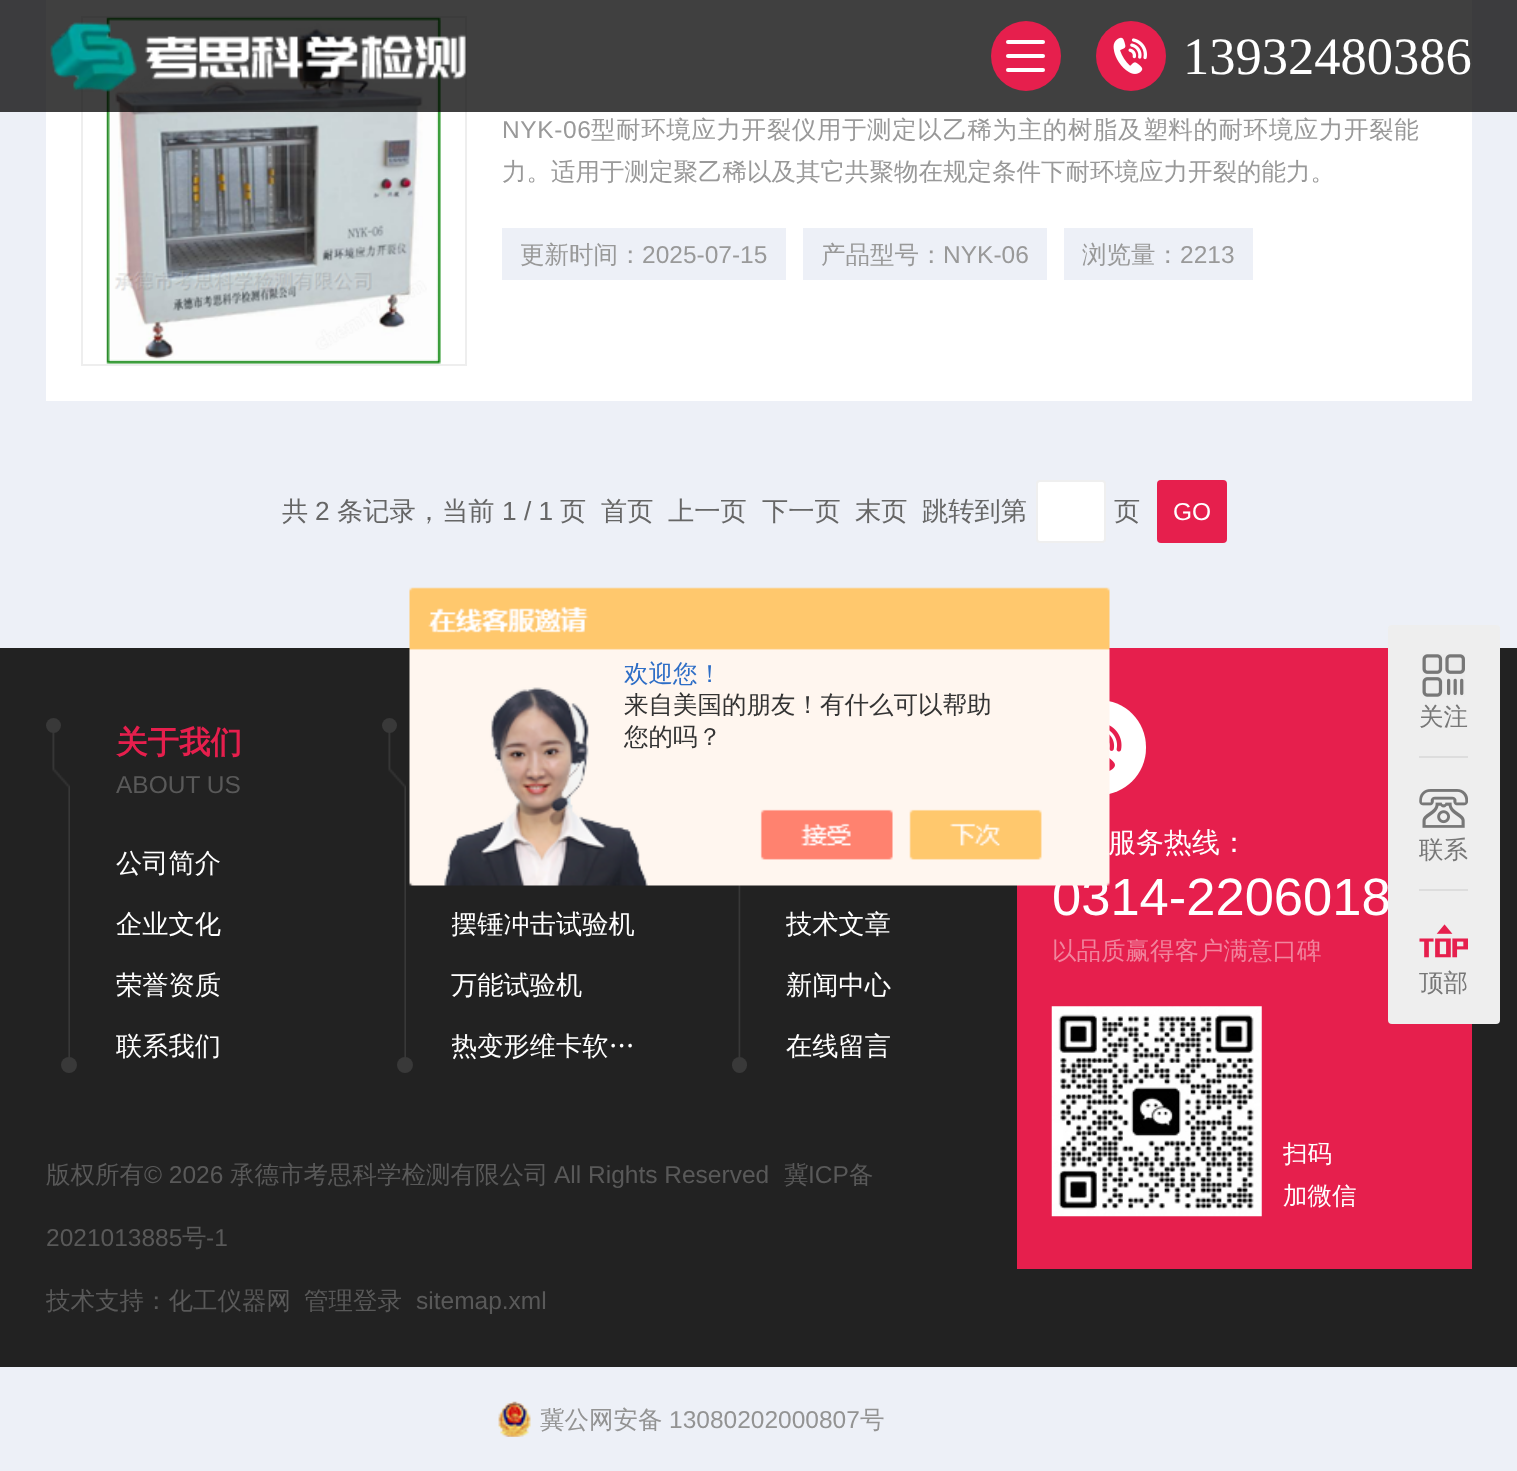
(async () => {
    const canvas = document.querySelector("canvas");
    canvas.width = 1517;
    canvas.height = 1471;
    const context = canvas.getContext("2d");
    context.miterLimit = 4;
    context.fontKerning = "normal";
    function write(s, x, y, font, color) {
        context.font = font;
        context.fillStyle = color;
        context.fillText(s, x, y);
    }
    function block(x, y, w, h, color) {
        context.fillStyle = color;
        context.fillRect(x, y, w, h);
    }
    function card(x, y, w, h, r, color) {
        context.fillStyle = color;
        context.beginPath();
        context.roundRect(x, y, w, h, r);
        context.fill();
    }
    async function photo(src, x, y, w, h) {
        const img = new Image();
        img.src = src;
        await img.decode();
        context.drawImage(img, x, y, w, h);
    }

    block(0, 0, 1517, 1471, "rgb(237, 240, 247)");
    block(46, 0, 1426, 401, "rgb(255, 255, 255)");
    context.strokeStyle = "rgb(238, 238, 238)";
    context.lineWidth = 2;
    context.strokeRect(82, 17, 384, 348);
    await photo("media/3.png", 106, 17, 335, 347);
    block(0, 0, 1517, 112, "rgba(0, 0, 0, 0.75)");
    await photo("media/1.png", 50, 22, 416, 70);
    context.fillStyle = "rgb(230, 31, 77)";
    context.beginPath();
    context.arc(1026, 56, 35, 0, Math.PI * 2);
    context.fill();
    card(1006, 40, 39, 4, 2, "rgb(255, 255, 255)");
    card(1006, 54, 39, 4, 2, "rgb(255, 255, 255)");
    card(1006, 68, 39, 4, 2, "rgb(255, 255, 255)");
    context.fillStyle = "rgb(230, 31, 77)";
    context.beginPath();
    context.arc(1131, 56, 35, 0, Math.PI * 2);
    context.fill();
    await photo("media/2.png", 1113, 37, 34, 37);
    write("13932480386", 1183, 74, "52.5px Liberation Serif", "rgb(255, 255, 255)");
    context.letterSpacing = "0.6px";
    write("NYK-06", 502, 138, "24.5px Liberation Sans", "rgb(153, 153, 153)");
    write("型耐环境应力开裂仪用于测定以乙稀为主的树脂及塑料的耐环境应力开裂能", 591, 138, "500 24.5px WenQuanYi Zen Hei", "rgb(153, 153, 153)");
    context.letterSpacing = "0px";
    write("力。适用于测定聚乙稀以及其它共聚物在规定条件下耐环境应力开裂的能力。", 502, 180, "500 24.5px WenQuanYi Zen Hei", "rgb(153, 153, 153)");
    block(502, 228, 284, 52, "rgb(237, 240, 247)");
    write("更新时间：", 520, 263, "500 24.5px WenQuanYi Zen Hei", "rgb(153, 153, 153)");
    write("2025-07-15", 642, 263, "24.5px Liberation Sans", "rgb(153, 153, 153)");
    block(803, 228, 244, 52, "rgb(237, 240, 247)");
    write("产品型号：", 821, 263, "500 24.5px WenQuanYi Zen Hei", "rgb(153, 153, 153)");
    write("NYK-06", 943, 263, "24.5px Liberation Sans", "rgb(153, 153, 153)");
    block(1064, 228, 189, 52, "rgb(237, 240, 247)");
    write("浏览量：", 1082, 263, "500 24.5px WenQuanYi Zen Hei", "rgb(153, 153, 153)");
    write("2213", 1180, 263, "24.5px Liberation Sans", "rgb(153, 153, 153)");
    write("共", 282, 520, "500 26.25px WenQuanYi Zen Hei", "rgb(102, 102, 102)");
    write("2", 315, 520, "26.25px Liberation Sans", "rgb(102, 102, 102)");
    write("条记录，当前", 337, 520, "500 26.25px WenQuanYi Zen Hei", "rgb(102, 102, 102)");
    write("1 / 1", 502, 520, "26.25px Liberation Sans", "rgb(102, 102, 102)");
    write("页", 560, 520, "500 26.25px WenQuanYi Zen Hei", "rgb(102, 102, 102)");
    write("首页", 601, 520, "500 26.25px WenQuanYi Zen Hei", "rgb(102, 102, 102)");
    write("上一页", 668, 520, "500 26.25px WenQuanYi Zen Hei", "rgb(102, 102, 102)");
    write("下一页", 762, 520, "500 26.25px WenQuanYi Zen Hei", "rgb(102, 102, 102)");
    write("末页", 855, 520, "500 26.25px WenQuanYi Zen Hei", "rgb(102, 102, 102)");
    write("跳转到第", 922, 520, "500 26.25px WenQuanYi Zen Hei", "rgb(102, 102, 102)");
    context.fillStyle = "rgb(255, 255, 255)";
    context.beginPath();
    context.roundRect(1037, 481, 68, 61, 3);
    context.fill();
    context.strokeStyle = "rgb(239, 239, 239)";
    context.stroke();
    write("页", 1114, 520, "500 26.25px WenQuanYi Zen Hei", "rgb(102, 102, 102)");
    card(1157, 480, 70, 63, 4, "rgb(230, 31, 77)");
    write("GO", 1173, 520, "24.5px Liberation Sans", "rgb(255, 255, 255)");
    block(0, 648, 1517, 719, "rgb(34, 34, 34)");
    await photo("media/10.png", 738, 885, 3, 188);
    block(1017, 648, 455, 621, "rgb(230, 31, 77)");
    card(1052, 700, 94, 95, 47, "rgb(255, 255, 255)");
    await photo("media/11.png", 1109, 725, 13, 46);
    write("服务热线：", 1108, 852, "500 28px WenQuanYi Zen Hei", "rgb(255, 255, 255)");
    write("0314-2206018", 1052, 915, "52.5px Liberation Sans", "rgb(255, 255, 255)");
    await photo("media/4.png", 409, 587, 701, 299);
    write("欢迎您！", 624, 682, "500 24.5px WenQuanYi Zen Hei", "rgb(46, 110, 198)");
    write("来自美国的朋友！有什么可以帮助", 624, 713, "500 24.5px WenQuanYi Zen Hei", "rgb(51, 51, 51)");
    write("您的吗？", 624, 745, "500 24.5px WenQuanYi Zen Hei", "rgb(51, 51, 51)");
    card(1388, 625, 112, 399, 4, "rgb(238, 238, 238)");
    await photo("media/5.png", 1422, 654, 43, 43);
    write("关注", 1419, 725, "500 24.5px WenQuanYi Zen Hei", "rgb(119, 119, 119)");
    block(1419, 756, 49, 2, "rgb(221, 221, 221)");
    await photo("media/6.png", 1419, 789, 49, 39);
    write("联系", 1419, 858, "500 24.5px WenQuanYi Zen Hei", "rgb(119, 119, 119)");
    block(1419, 889, 49, 2, "rgb(221, 221, 221)");
    await photo("media/7.png", 1419, 924, 49, 34);
    write("顶部", 1419, 991, "500 24.5px WenQuanYi Zen Hei", "rgb(119, 119, 119)");
    await photo("media/8.png", 52, 732, 18, 341);
    context.fillStyle = "rgb(57, 57, 57)";
    context.beginPath();
    context.arc(53.5, 725.5, 7.5, 0, Math.PI * 2);
    context.fill();
    write("关于我们", 116, 753, "bold 31.5px WenQuanYi Zen Hei", "rgb(230, 31, 77)");
    write("ABOUT US", 116, 793, "24.5px Liberation Sans", "rgb(89, 89, 89)");
    write("公司简介", 116, 872, "500 26.25px WenQuanYi Zen Hei", "rgb(255, 255, 255)");
    write("企业文化", 116, 933, "500 26.25px WenQuanYi Zen Hei", "rgb(255, 255, 255)");
    write("荣誉资质", 116, 994, "500 26.25px WenQuanYi Zen Hei", "rgb(255, 255, 255)");
    context.save();
    context.beginPath();
    context.rect(116, 1020, 196, 53);
    context.clip();
    write("联系我们", 116, 1055, "500 26.25px WenQuanYi Zen Hei", "rgb(255, 255, 255)");
    context.restore();
    context.fillStyle = "rgb(57, 57, 57)";
    context.beginPath();
    context.arc(69, 1065, 8, 0, Math.PI * 2);
    context.fill();
    await photo("media/9.png", 388, 732, 18, 341);
    context.beginPath();
    context.arc(389.5, 725.5, 7.5, 0, Math.PI * 2);
    context.fill();
    context.save();
    context.beginPath();
    context.rect(452, 898, 194, 52);
    context.clip();
    write("摆锤冲击试验机", 451, 933, "500 26.25px WenQuanYi Zen Hei", "rgb(255, 255, 255)");
    context.restore();
    write("万能试验机", 451, 994, "500 26.25px WenQuanYi Zen Hei", "rgb(255, 255, 255)");
    context.save();
    context.beginPath();
    context.rect(452, 1020, 194, 53);
    context.clip();
    write("热变形维卡软…", 451, 1055, "500 26.25px WenQuanYi Zen Hei", "rgb(255, 255, 255)");
    context.restore();
    context.fillStyle = "rgb(57, 57, 57)";
    context.beginPath();
    context.arc(405, 1065, 8, 0, Math.PI * 2);
    context.fill();
    write("技术文章", 786, 933, "500 26.25px WenQuanYi Zen Hei", "rgb(255, 255, 255)");
    write("新闻中心", 786, 994, "500 26.25px WenQuanYi Zen Hei", "rgb(255, 255, 255)");
    write("在线留言", 786, 1055, "500 26.25px WenQuanYi Zen Hei", "rgb(255, 255, 255)");
    card(732, 1057, 15, 16, 7.5, "rgb(57, 57, 57)");
    write("版权所有", 46, 1183, "500 24.5px WenQuanYi Zen Hei", "rgb(89, 89, 89)");
    write("© 2026", 144, 1183, "24.5px Liberation Sans", "rgb(89, 89, 89)");
    write("承德市考思科学检测有限公司", 230, 1183, "500 24.5px WenQuanYi Zen Hei", "rgb(89, 89, 89)");
    write("All Rights Reserved", 554, 1183, "24.5px Liberation Sans", "rgb(89, 89, 89)");
    write("冀", 784, 1183, "500 24.5px WenQuanYi Zen Hei", "rgb(89, 89, 89)");
    write("ICP", 808, 1183, "24.5px Liberation Sans", "rgb(89, 89, 89)");
    write("备", 849, 1183, "500 24.5px WenQuanYi Zen Hei", "rgb(89, 89, 89)");
    write("2021013885", 46, 1246, "24.5px Liberation Sans", "rgb(89, 89, 89)");
    write("号", 182, 1246, "500 24.5px WenQuanYi Zen Hei", "rgb(89, 89, 89)");
    write("-1", 206, 1246, "24.5px Liberation Sans", "rgb(89, 89, 89)");
    write("技术支持：化工仪器网", 46, 1309, "500 24.5px WenQuanYi Zen Hei", "rgb(89, 89, 89)");
    write("管理登录", 304, 1309, "500 24.5px WenQuanYi Zen Hei", "rgb(89, 89, 89)");
    write("sitemap.xml", 416, 1309, "24.5px Liberation Sans", "rgb(89, 89, 89)");
    write("以品质赢得客户满意口碑", 1052, 959, "500 24.5px WenQuanYi Zen Hei", "rgb(241, 132, 157)");
    await photo("media/12.png", 1051, 1006, 211, 211);
    write("扫码", 1283, 1162, "500 24.5px WenQuanYi Zen Hei", "rgb(255, 255, 255)");
    write("加微信", 1283, 1204, "500 24.5px WenQuanYi Zen Hei", "rgb(255, 255, 255)");
    await photo("media/13.png", 498, 1401, 33, 36);
    write("冀公网安备", 540, 1428, "500 24.5px WenQuanYi Zen Hei", "rgb(147, 147, 147)");
    write("13080202000807", 669, 1428, "24.5px Liberation Sans", "rgb(147, 147, 147)");
    write("号", 860, 1428, "500 24.5px WenQuanYi Zen Hei", "rgb(147, 147, 147)");
})();
